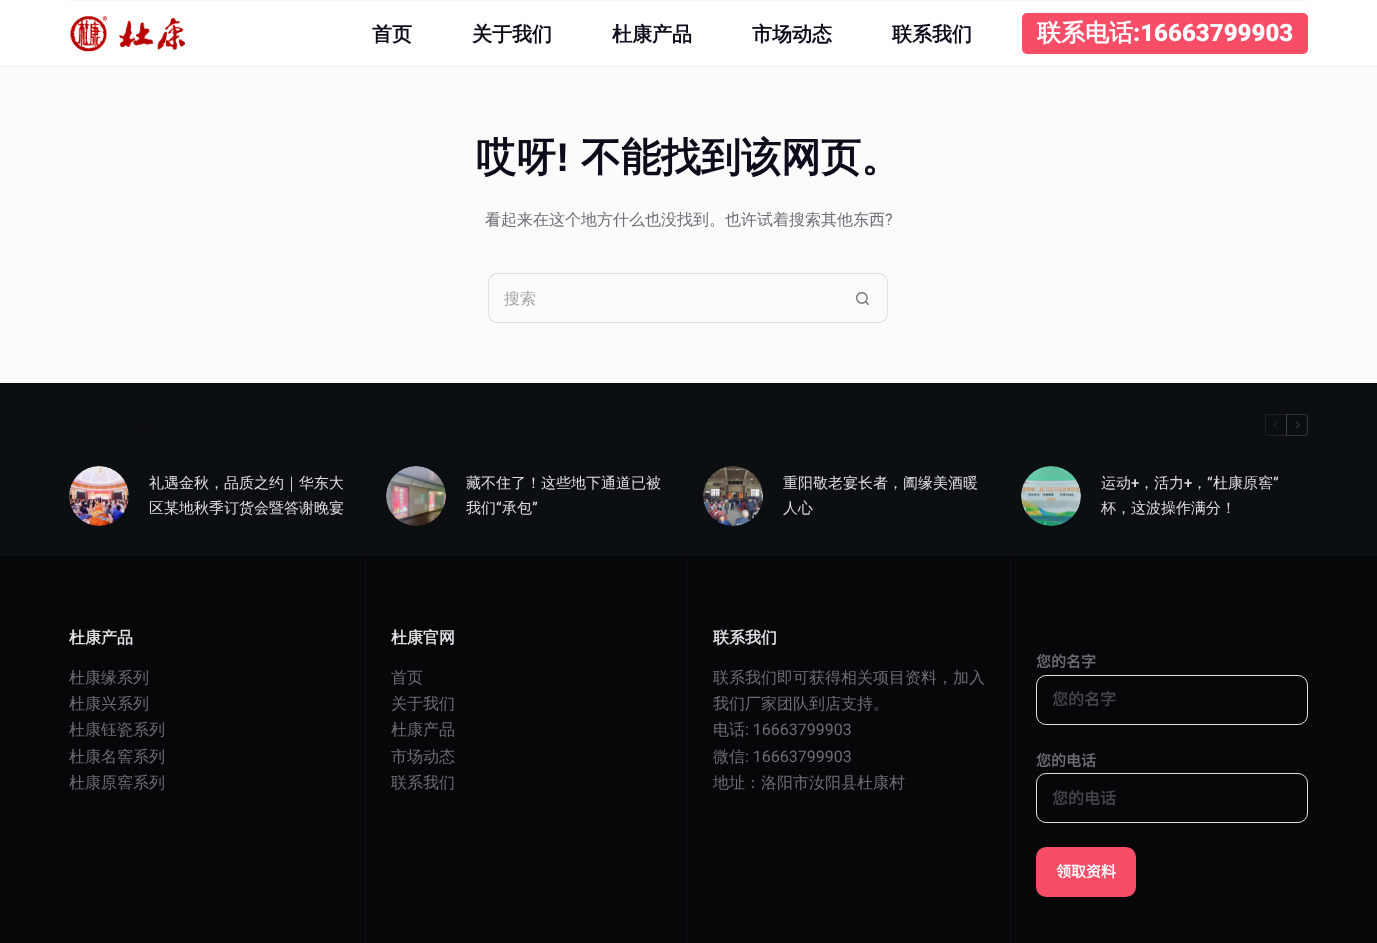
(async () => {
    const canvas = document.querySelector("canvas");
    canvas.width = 1377;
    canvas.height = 943;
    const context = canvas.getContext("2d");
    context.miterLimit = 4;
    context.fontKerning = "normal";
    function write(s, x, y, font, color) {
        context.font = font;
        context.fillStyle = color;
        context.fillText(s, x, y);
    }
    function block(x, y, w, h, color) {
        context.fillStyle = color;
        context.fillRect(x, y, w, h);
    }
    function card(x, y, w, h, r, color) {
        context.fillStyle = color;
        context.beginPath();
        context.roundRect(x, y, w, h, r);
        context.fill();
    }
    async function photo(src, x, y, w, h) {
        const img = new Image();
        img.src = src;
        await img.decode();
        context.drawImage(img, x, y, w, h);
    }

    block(0, 0, 1377, 943, "rgb(251, 251, 251)");
    block(0, 0, 1377, 66, "rgb(255, 255, 255)");
    block(0, 66, 1377, 1, "rgb(255, 236, 226)");
    block(69, 0, 1239, 1, "rgb(244, 245, 246)");
    await photo("media/1.png", 70, 15, 115, 37);
    write("首页", 372, 41, "bold 20px WenQuanYi Zen Hei", "rgb(14, 12, 27)");
    write("关于我们", 472, 41, "bold 20px WenQuanYi Zen Hei", "rgb(14, 12, 27)");
    write("杜康产品", 612, 41, "bold 20px WenQuanYi Zen Hei", "rgb(14, 12, 27)");
    write("市场动态", 752, 41, "bold 20px WenQuanYi Zen Hei", "rgb(14, 12, 27)");
    write("联系我们", 892, 41, "bold 20px WenQuanYi Zen Hei", "rgb(14, 12, 27)");
    card(1022, 13, 286, 41, 5, "rgb(247, 77, 103)");
    write("联系电话", 1037, 41, "bold 24px WenQuanYi Zen Hei", "rgb(255, 255, 255)");
    write(":16663799903", 1133, 41, "900 24px Roboto", "rgb(255, 255, 255)");
    write("哎呀", 476, 171, "bold 40px WenQuanYi Zen Hei", "rgb(14, 12, 27)");
    write("!", 556, 171, "bold 40px Liberation Sans", "rgb(14, 12, 27)");
    write("不能找到该网页。", 581, 171, "bold 40px WenQuanYi Zen Hei", "rgb(14, 12, 27)");
    write("看起来在这个地方什么也没找到。也许试着搜索其他东西", 485, 225, "500 16px WenQuanYi Zen Hei", "rgb(110, 109, 118)");
    write("?", 885, 225, "16px Roboto", "rgb(110, 109, 118)");
    context.fillStyle = "rgb(223, 223, 226)";
    context.beginPath();
    context.moveTo(498, 273);
    context.lineTo(838, 273);
    context.lineTo(838, 323);
    context.lineTo(498, 323);
    context.bezierCurveTo(492, 323, 488, 319, 488, 313);
    context.lineTo(488, 283);
    context.bezierCurveTo(488, 277, 492, 273, 498, 273);
    context.closePath();
    context.moveTo(498, 274);
    context.lineTo(838, 274);
    context.lineTo(838, 322);
    context.lineTo(498, 322);
    context.bezierCurveTo(493, 322, 489, 318, 489, 313);
    context.lineTo(489, 283);
    context.bezierCurveTo(489, 278, 493, 274, 498, 274);
    context.closePath();
    context.fill("evenodd");
    write("搜索", 504, 304, "500 16px WenQuanYi Zen Hei", "rgb(166, 166, 171)");
    context.fillStyle = "rgb(223, 223, 226)";
    context.beginPath();
    context.moveTo(838, 273);
    context.lineTo(878, 273);
    context.bezierCurveTo(884, 273, 888, 277, 888, 283);
    context.lineTo(888, 313);
    context.bezierCurveTo(888, 319, 884, 323, 878, 323);
    context.lineTo(838, 323);
    context.closePath();
    context.moveTo(838, 274);
    context.lineTo(878, 274);
    context.bezierCurveTo(883, 274, 887, 278, 887, 283);
    context.lineTo(887, 313);
    context.bezierCurveTo(887, 318, 883, 322, 878, 322);
    context.lineTo(838, 322);
    context.closePath();
    context.fill("evenodd");
    await photo("media/2.png", 856, 292, 13, 13);
    block(0, 383, 1377, 173, "rgb(12, 15, 18)");
    await photo("media/3.png", 139, 423, 13, 8);
    context.beginPath();
    context.roundRect(1265.5, 414.5, 21, 21, [2.5, 0, 0, 2.5]);
    context.strokeStyle = "rgb(32, 34, 38)";
    context.stroke();
    await photo("media/4.png", 1273, 421, 5, 8);
    context.beginPath();
    context.roundRect(1286.5, 414.5, 21, 21, [0, 2.5, 2.5, 0]);
    context.strokeStyle = "rgba(110, 109, 118, 0.4)";
    context.stroke();
    await photo("media/5.png", 1295, 421, 5, 8);
    await photo("media/6.png", 69, 466, 60, 60);
    write("礼遇金秋，品质之约｜华东大", 149, 488, "500 15px WenQuanYi Zen Hei", "rgb(223, 223, 226)");
    write("区某地秋季订货会暨答谢晚宴", 149, 513, "500 15px WenQuanYi Zen Hei", "rgb(223, 223, 226)");
    await photo("media/7.png", 386, 466, 60, 60);
    write("藏不住了！这些地下通道已被", 466, 488, "500 15px WenQuanYi Zen Hei", "rgb(223, 223, 226)");
    write("我们", 466, 513, "500 15px WenQuanYi Zen Hei", "rgb(223, 223, 226)");
    write("“", 496, 513, "500 15px Roboto", "rgb(223, 223, 226)");
    write("承包", 502, 513, "500 15px WenQuanYi Zen Hei", "rgb(223, 223, 226)");
    write("”", 532, 513, "500 15px Roboto", "rgb(223, 223, 226)");
    await photo("media/8.png", 703, 466, 60, 60);
    write("重阳敬老宴长者，阖缘美酒暖", 783, 488, "500 15px WenQuanYi Zen Hei", "rgb(223, 223, 226)");
    write("人心", 783, 513, "500 15px WenQuanYi Zen Hei", "rgb(223, 223, 226)");
    await photo("media/9.png", 1021, 466, 60, 60);
    write("运动", 1101, 488, "500 15px WenQuanYi Zen Hei", "rgb(223, 223, 226)");
    write("，活力", 1139, 488, "500 15px WenQuanYi Zen Hei", "rgb(223, 223, 226)");
    write("“", 1207, 488, "500 15px Roboto", "rgb(223, 223, 226)");
    write("杜康原窖", 1213, 488, "500 15px WenQuanYi Zen Hei", "rgb(223, 223, 226)");
    write("”", 1273, 488, "500 15px Roboto", "rgb(223, 223, 226)");
    write("+", 1131, 488, "500 15px Roboto", "rgb(223, 223, 226)");
    write("+", 1184, 488, "500 15px Roboto", "rgb(223, 223, 226)");
    write("，", 1192, 488, "500 15px WenQuanYi Zen Hei", "rgb(223, 223, 226)");
    write("杯，这波操作满分！", 1101, 513, "500 15px WenQuanYi Zen Hei", "rgb(223, 223, 226)");
    block(0, 556, 1377, 387, "rgb(5, 7, 9)");
    write("杜康产品", 69, 643, "bold 16px WenQuanYi Zen Hei", "rgb(223, 223, 226)");
    write("杜康缘系列", 69, 683, "500 16px WenQuanYi Zen Hei", "rgb(110, 109, 118)");
    write("杜康兴系列", 69, 709, "500 16px WenQuanYi Zen Hei", "rgb(110, 109, 118)");
    write("杜康钰瓷系列", 69, 735, "500 16px WenQuanYi Zen Hei", "rgb(110, 109, 118)");
    write("杜康名窖系列", 69, 762, "500 16px WenQuanYi Zen Hei", "rgb(110, 109, 118)");
    write("杜康原窖系列", 69, 788, "500 16px WenQuanYi Zen Hei", "rgb(110, 109, 118)");
    block(365, 556, 1, 387, "rgb(12, 15, 18)");
    write("杜康官网", 391, 643, "bold 16px WenQuanYi Zen Hei", "rgb(223, 223, 226)");
    write("首页", 391, 683, "500 16px WenQuanYi Zen Hei", "rgb(110, 109, 118)");
    write("关于我们", 391, 709, "500 16px WenQuanYi Zen Hei", "rgb(110, 109, 118)");
    write("杜康产品", 391, 735, "500 16px WenQuanYi Zen Hei", "rgb(110, 109, 118)");
    write("市场动态", 391, 762, "500 16px WenQuanYi Zen Hei", "rgb(110, 109, 118)");
    write("联系我们", 391, 788, "500 16px WenQuanYi Zen Hei", "rgb(110, 109, 118)");
    block(687, 556, 1, 387, "rgb(12, 15, 18)");
    write("联系我们", 713, 643, "bold 16px WenQuanYi Zen Hei", "rgb(223, 223, 226)");
    write("联系我们即可获得相关项目资料，加入", 713, 683, "500 16px WenQuanYi Zen Hei", "rgb(110, 109, 118)");
    write("我们厂家团队到店支持。", 713, 709, "500 16px WenQuanYi Zen Hei", "rgb(110, 109, 118)");
    write("电话", 713, 735, "500 16px WenQuanYi Zen Hei", "rgb(110, 109, 118)");
    write(": 16663799903", 745, 735, "16px Roboto", "rgb(110, 109, 118)");
    write("微信", 713, 762, "500 16px WenQuanYi Zen Hei", "rgb(110, 109, 118)");
    write(": 16663799903", 745, 762, "16px Roboto", "rgb(110, 109, 118)");
    write("地址：洛阳市汝阳县杜康村", 713, 788, "500 16px WenQuanYi Zen Hei", "rgb(110, 109, 118)");
    block(1010, 556, 1, 387, "rgb(12, 15, 18)");
    write("您的名字", 1036, 667, "bold 15px Noto Sans CJK SC", "rgb(110, 109, 118)");
    context.beginPath();
    context.roundRect(1036.5, 675.5, 271, 49, 9.5);
    context.strokeStyle = "rgb(223, 223, 226)";
    context.stroke();
    write("您的名字", 1052, 705, "bold 16px Noto Sans CJK SC", "rgb(68, 68, 74)");
    write("您的电话", 1036, 766, "bold 15px Noto Sans CJK SC", "rgb(110, 109, 118)");
    context.beginPath();
    context.roundRect(1036.5, 773.5, 271, 49, 9.5);
    context.stroke();
    write("您的电话", 1052, 804, "bold 16px Noto Sans CJK SC", "rgb(68, 68, 74)");
    card(1036, 847, 100, 50, 10, "rgb(247, 77, 103)");
    write("领取资料", 1056, 877, "bold 15px Noto Sans CJK SC", "rgb(255, 255, 255)");
})();
